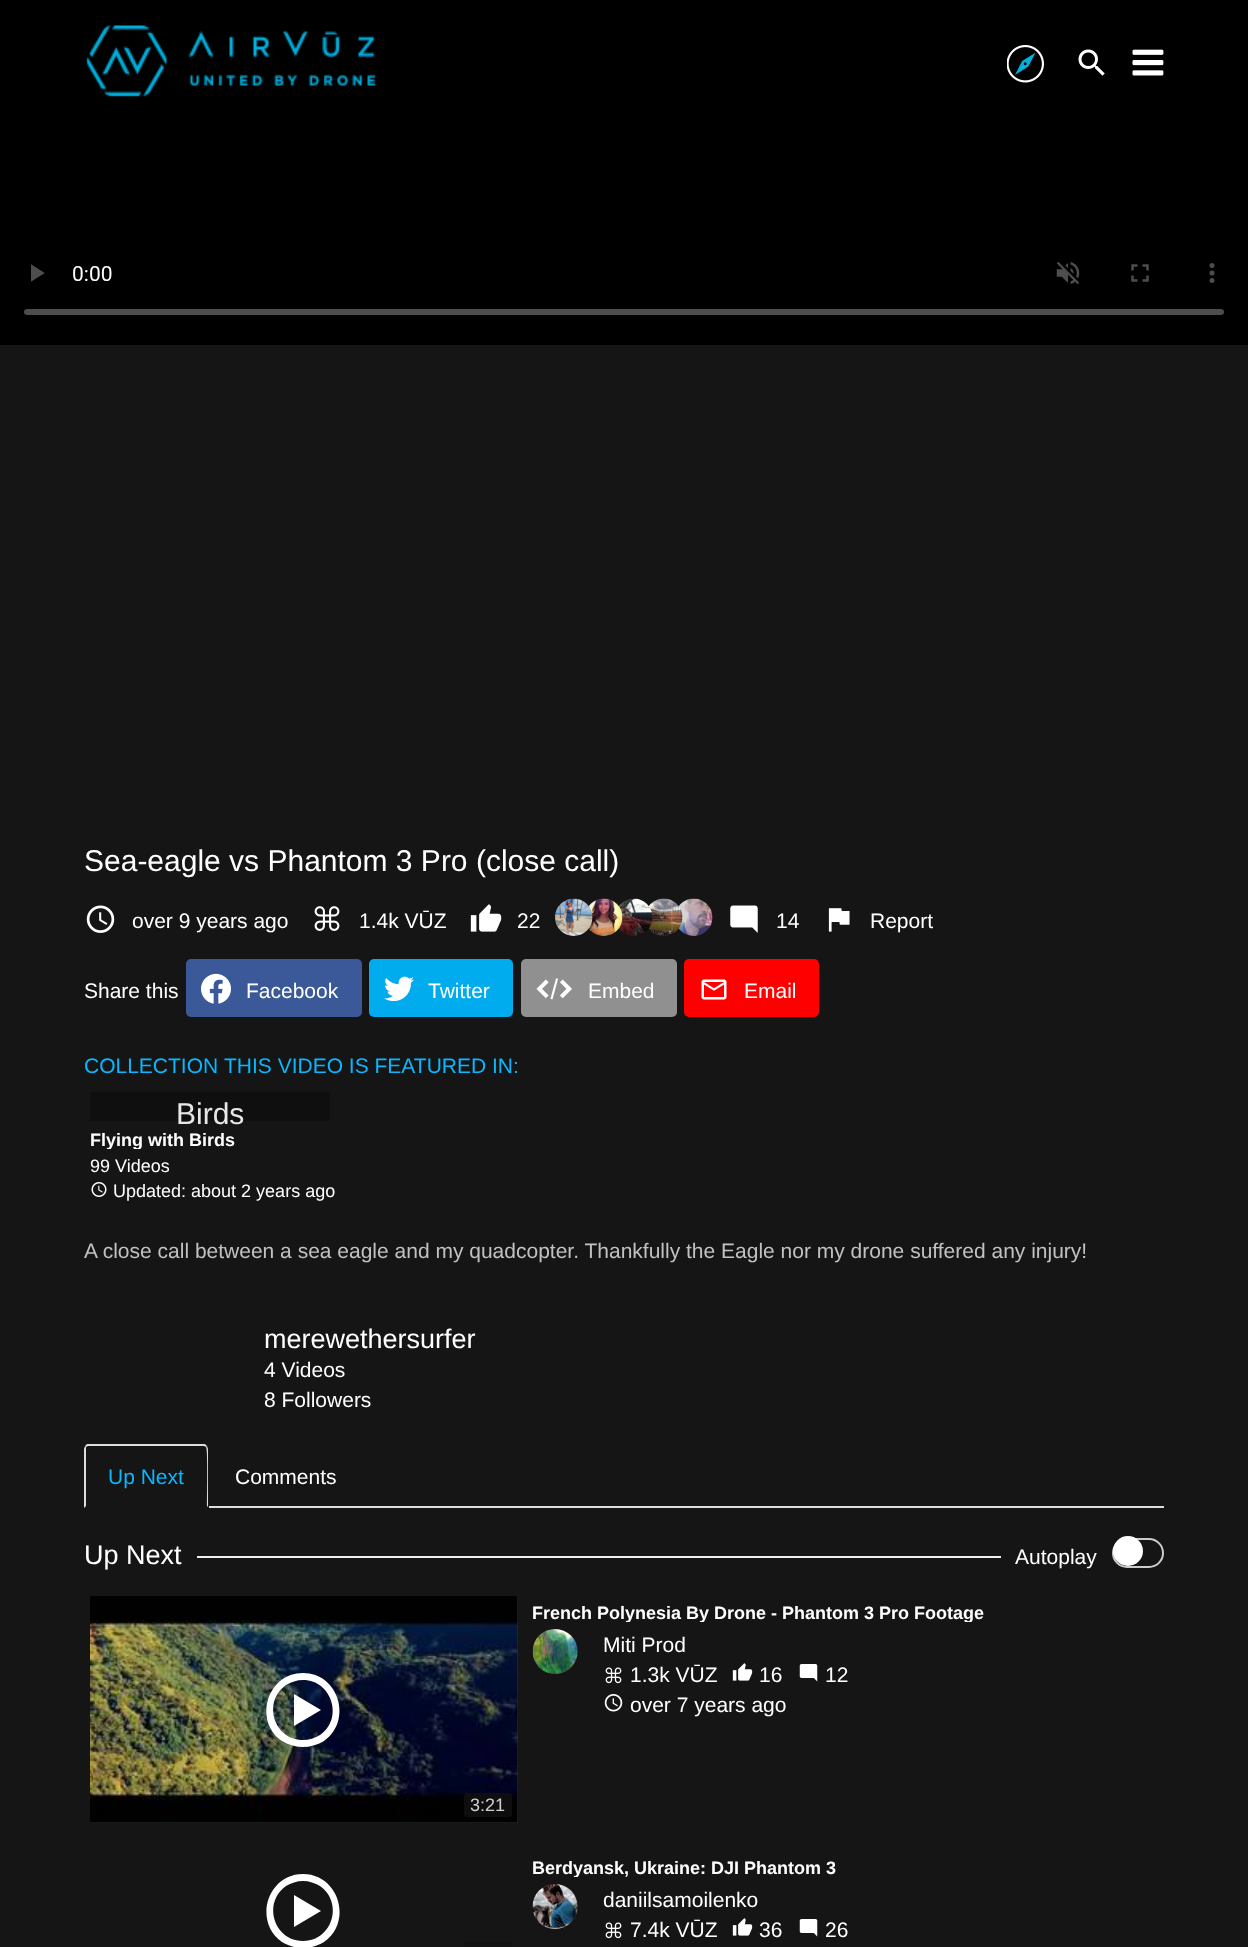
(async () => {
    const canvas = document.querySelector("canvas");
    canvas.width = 1248;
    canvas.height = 1947;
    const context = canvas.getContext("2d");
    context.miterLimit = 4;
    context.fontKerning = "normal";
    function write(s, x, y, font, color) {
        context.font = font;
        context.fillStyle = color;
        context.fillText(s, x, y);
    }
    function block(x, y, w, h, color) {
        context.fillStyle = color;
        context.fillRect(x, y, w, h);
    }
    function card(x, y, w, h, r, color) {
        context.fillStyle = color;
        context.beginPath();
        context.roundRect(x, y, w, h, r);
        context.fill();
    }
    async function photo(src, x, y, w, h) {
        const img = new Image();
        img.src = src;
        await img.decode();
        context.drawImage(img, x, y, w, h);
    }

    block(0, 0, 1248, 1947, "rgb(21, 21, 22)");
    block(0, 0, 1248, 345, "rgb(0, 0, 0)");
    await photo("media/1.png", 86, 25, 290, 72);
    await photo("media/2.png", 1007, 45, 37, 38);
    await photo("media/3.png", 1078, 49, 27, 27);
    await photo("media/4.png", 1132, 49, 32, 27);
    await photo("media/5.png", 24, 261, 1200, 54);
    write("Sea-eagle vs Phantom 3 Pro (close call)", 84, 871, "30px Liberation Sans", "rgb(255, 255, 255)");
    await photo("media/6.png", 86, 905, 29, 28);
    write("over 9 years ago", 132, 928, "21px Liberation Sans", "rgb(255, 255, 255)");
    await photo("media/7.png", 314, 906, 26, 25);
    write("1.4k VŪZ", 359, 928, "21px Liberation Sans", "rgb(255, 255, 255)");
    await photo("media/8.png", 470, 904, 32, 28);
    write("22", 517, 928, "21px Liberation Sans", "rgb(255, 255, 255)");
    await photo("media/13.png", 678, 898, 35, 38);
    await photo("media/12.png", 648, 898, 35, 38);
    await photo("media/11.png", 618, 898, 35, 38);
    await photo("media/10.png", 588, 898, 35, 38);
    await photo("media/9.png", 555, 898, 38, 38);
    await photo("media/14.png", 730, 905, 28, 28);
    write("14", 776, 928, "21px Liberation Sans", "rgb(255, 255, 255)");
    await photo("media/15.png", 828, 908, 22, 24);
    write("Report", 870, 928, "21px Liberation Sans", "rgb(255, 255, 255)");
    write("Share this", 84, 998, "21px Liberation Sans", "rgb(255, 255, 255)");
    card(186, 959, 176, 58, 5, "rgb(59, 89, 152)");
    await photo("media/16.png", 201, 973, 30, 31);
    write("Facebook", 246, 998, "21px Liberation Sans", "rgb(255, 255, 255)");
    card(369, 959, 144, 58, 5, "rgb(0, 172, 237)");
    await photo("media/17.png", 384, 976, 30, 26);
    write("Twitter", 428, 998, "21px Liberation Sans", "rgb(255, 255, 255)");
    card(521, 959, 156, 58, 5, "rgb(144, 144, 144)");
    await photo("media/18.png", 536, 978, 36, 22);
    write("Embed", 588, 998, "21px Liberation Sans", "rgb(255, 255, 255)");
    card(684, 959, 135, 58, 5, "rgb(255, 0, 0)");
    await photo("media/19.png", 701, 979, 26, 21);
    write("Email", 744, 998, "21px Liberation Sans", "rgb(255, 255, 255)");
    write("COLLECTION", 84, 1073, "21px Liberation Sans", "rgb(10, 183, 255)");
    write("THIS VIDEO IS FEATURED IN:", 224, 1073, "21px Liberation Sans", "rgb(10, 183, 255)");
    block(90, 1092, 240, 29, "rgb(15, 15, 15)");
    write("Birds", 176, 1124, "30px Liberation Sans", "rgb(231, 231, 231)");
    context.save();
    context.beginPath();
    context.rect(90, 1131, 258, 18);
    context.clip();
    write("Flying with Birds", 90, 1146, "bold 18px Liberation Sans", "rgb(255, 255, 255)");
    context.restore();
    write("99 Videos", 90, 1172, "18px Liberation Sans", "rgb(255, 255, 255)");
    await photo("media/20.png", 91, 1182, 16, 15);
    write("Updated: about 2 years ago", 113, 1197, "18px Liberation Sans", "rgb(255, 255, 255)");
    write("A close call between a sea eagle and my quadcopter. Thankfully the Eagle nor my drone suffered any injury!", 84, 1258, "21px Liberation Sans", "rgb(193, 193, 193)");
    write("merewethersurfer", 264, 1348, "27px Liberation Sans", "rgb(255, 255, 255)");
    write("4 Videos", 264, 1377, "21px Liberation Sans", "rgb(255, 255, 255)");
    write("8 Followers", 264, 1407, "21px Liberation Sans", "rgb(255, 255, 255)");
    block(209, 1506, 955, 2, "rgb(221, 221, 221)");
    context.beginPath();
    context.moveTo(88, 1446);
    context.lineTo(86, 1447);
    context.lineTo(85, 1446);
    context.lineTo(87, 1444);
    context.lineTo(205, 1444);
    context.lineTo(207, 1446);
    context.lineTo(206, 1447);
    context.lineTo(204, 1446);
    context.closePath();
    context.fill();
    context.beginPath();
    context.moveTo(207, 1446);
    context.lineTo(208, 1449);
    context.lineTo(208, 1507);
    context.lineTo(207, 1506);
    context.bezierCurveTo(207, 1499, 208, 1449, 206, 1447);
    context.closePath();
    context.fill();
    context.beginPath();
    context.moveTo(84, 1508);
    context.lineTo(86, 1506);
    context.lineTo(86, 1449);
    context.lineTo(86, 1447);
    context.lineTo(85, 1446);
    context.lineTo(84, 1449);
    context.closePath();
    context.fill();
    write("Up Next", 108, 1484, "21px Liberation Sans", "rgb(10, 183, 255)");
    write("Comments", 235, 1484, "21px Liberation Sans", "rgb(255, 255, 255)");
    write("Up Next", 84, 1564, "27px Liberation Sans", "rgb(255, 255, 255)");
    block(197, 1556, 804, 2, "rgb(238, 238, 238)");
    write("Autoplay", 1015, 1564, "21px Liberation Sans", "rgb(255, 255, 255)");
    context.beginPath();
    context.roundRect(1113, 1539, 50, 28, 14);
    context.strokeStyle = "rgb(204, 204, 204)";
    context.lineWidth = 2;
    context.stroke();
    context.beginPath();
    context.arc(1128, 1551, 15, 0, Math.PI * 2);
    context.fill();
    context.save();
    context.beginPath();
    context.rect(533, 1604, 625, 18);
    context.clip();
    write("French Polynesia By Drone - Phantom 3 Pro Footage", 532, 1619, "bold 18px Liberation Sans", "rgb(255, 255, 255)");
    context.restore();
    context.fillStyle = "rgb(51, 51, 51)";
    context.beginPath();
    context.arc(555.5, 1651.5, 22.5, 0, Math.PI * 2);
    context.fill();
    await photo("media/21.png", 532, 1629, 46, 45);
    write("Miti Prod", 603, 1652, "21px Liberation Sans", "rgb(255, 255, 255)");
    await photo("media/22.png", 605, 1667, 17, 17);
    write("1.3k VŪZ", 630, 1682, "21px Liberation Sans", "rgb(255, 255, 255)");
    await photo("media/23.png", 732, 1663, 21, 18);
    write("16", 759, 1682, "21px Liberation Sans", "rgb(255, 255, 255)");
    await photo("media/24.png", 799, 1664, 19, 18);
    write("12", 825, 1682, "21px Liberation Sans", "rgb(255, 255, 255)");
    await photo("media/25.png", 604, 1694, 19, 18);
    write("over 7 years ago", 630, 1712, "21px Liberation Sans", "rgb(255, 255, 255)");
    block(90, 1596, 428, 227, "rgb(51, 51, 51)");
    await photo("media/26.png", 90, 1596, 428, 227);
    context.fillStyle = "rgb(255, 255, 255)";
    context.beginPath();
    context.moveTo(303, 1673);
    context.bezierCurveTo(267, 1673, 253, 1721, 282, 1741);
    context.bezierCurveTo(289, 1745, 296, 1747, 303, 1747);
    context.bezierCurveTo(310, 1747, 317, 1745, 324, 1741);
    context.bezierCurveTo(353, 1721, 339, 1673, 303, 1673);
    context.closePath();
    context.moveTo(303, 1740);
    context.bezierCurveTo(274, 1740, 262, 1702, 286, 1685);
    context.bezierCurveTo(291, 1682, 297, 1680, 303, 1680);
    context.bezierCurveTo(332, 1680, 344, 1719, 320, 1735);
    context.bezierCurveTo(315, 1738, 309, 1740, 303, 1740);
    context.closePath();
    context.moveTo(294, 1694);
    context.lineTo(321, 1710);
    context.lineTo(294, 1726);
    context.closePath();
    context.fill();
    card(464, 1793, 48, 24, 3, "rgba(17, 17, 17, 0.8)");
    write("3:21", 470, 1811, "18px Liberation Sans", "rgb(207, 207, 207)");
    context.fillStyle = "rgb(255, 255, 255)";
    context.beginPath();
    context.moveTo(303, 1874);
    context.bezierCurveTo(267, 1874, 253, 1922, 282, 1942);
    context.bezierCurveTo(289, 1946, 296, 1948, 303, 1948);
    context.bezierCurveTo(310, 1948, 317, 1946, 324, 1942);
    context.bezierCurveTo(353, 1922, 339, 1874, 303, 1874);
    context.closePath();
    context.moveTo(303, 1941);
    context.bezierCurveTo(274, 1941, 262, 1903, 286, 1886);
    context.bezierCurveTo(291, 1883, 297, 1881, 303, 1881);
    context.bezierCurveTo(309, 1881, 315, 1883, 320, 1886);
    context.bezierCurveTo(344, 1903, 332, 1941, 303, 1941);
    context.closePath();
    context.moveTo(294, 1895);
    context.lineTo(321, 1911);
    context.lineTo(294, 1927);
    context.closePath();
    context.fill();
    card(464, 1941, 48, 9, 3, "rgb(18, 18, 18)");
    context.save();
    context.beginPath();
    context.rect(533, 1859, 625, 18);
    context.clip();
    write("Berdyansk, Ukraine: DJI Phantom 3", 532, 1874, "bold 18px Liberation Sans", "rgb(255, 255, 255)");
    context.restore();
    context.fillStyle = "rgb(51, 51, 51)";
    context.beginPath();
    context.arc(555.5, 1906.5, 22.5, 0, Math.PI * 2);
    context.fill();
    await photo("media/27.png", 532, 1884, 46, 45);
    write("daniilsamoilenko", 603, 1907, "21px Liberation Sans", "rgb(255, 255, 255)");
    await photo("media/22.png", 605, 1922, 17, 17);
    write("7.4k VŪZ", 630, 1937, "21px Liberation Sans", "rgb(255, 255, 255)");
    await photo("media/23.png", 732, 1918, 21, 18);
    write("36", 759, 1937, "21px Liberation Sans", "rgb(255, 255, 255)");
    await photo("media/24.png", 799, 1919, 19, 18);
    write("26", 825, 1937, "21px Liberation Sans", "rgb(255, 255, 255)");
})();
